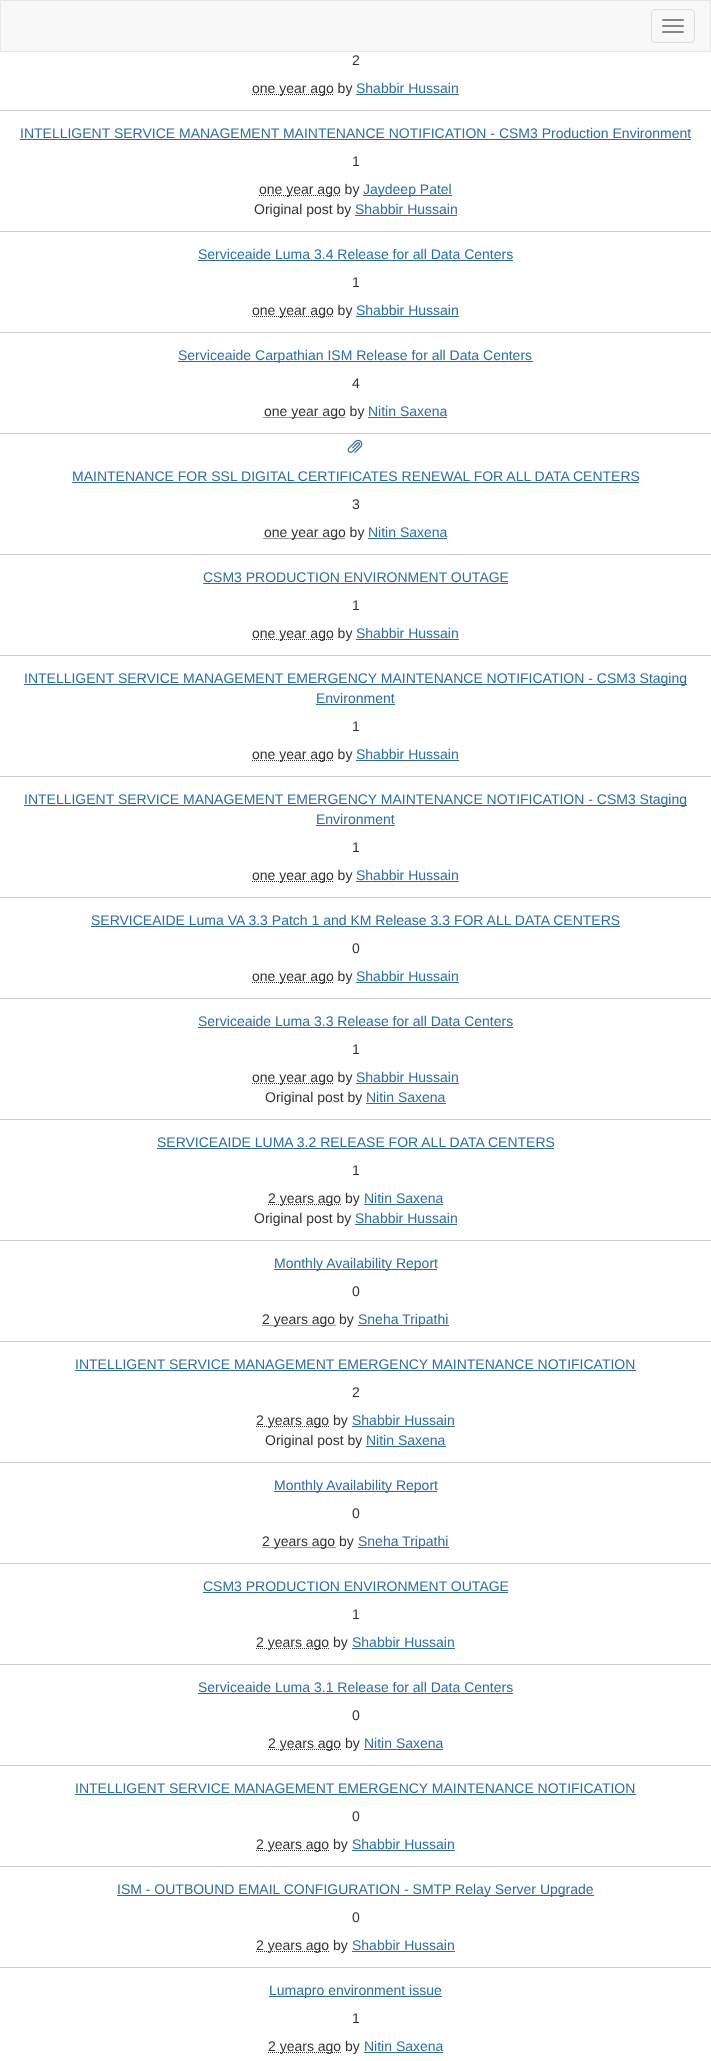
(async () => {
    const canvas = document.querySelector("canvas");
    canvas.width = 711;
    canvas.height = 2061;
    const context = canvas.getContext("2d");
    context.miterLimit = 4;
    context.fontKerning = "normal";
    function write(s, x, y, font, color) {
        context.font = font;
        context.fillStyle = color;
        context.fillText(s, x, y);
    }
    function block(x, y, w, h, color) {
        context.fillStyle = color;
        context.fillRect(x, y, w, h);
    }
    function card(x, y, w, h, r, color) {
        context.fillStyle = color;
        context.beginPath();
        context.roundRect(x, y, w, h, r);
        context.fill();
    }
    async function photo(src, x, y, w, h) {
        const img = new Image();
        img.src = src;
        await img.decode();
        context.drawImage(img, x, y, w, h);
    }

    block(0, 0, 711, 2061, "rgb(255, 255, 255)");
    context.fillStyle = "rgb(248, 248, 248)";
    context.beginPath();
    context.rect(0.5, 0.5, 710, 51);
    context.fill();
    context.strokeStyle = "rgb(231, 231, 231)";
    context.stroke();
    context.beginPath();
    context.roundRect(651.5, 9.5, 43, 33, 3.5);
    context.strokeStyle = "rgb(221, 221, 221)";
    context.stroke();
    card(662, 19, 22, 2, 1, "rgb(136, 136, 136)");
    card(662, 25, 22, 2, 1, "rgb(136, 136, 136)");
    card(662, 31, 22, 2, 1, "rgb(136, 136, 136)");
    write("2", 352, 65, "14px Liberation Sans", "rgb(51, 51, 51)");
    context.beginPath();
    context.moveTo(252, 94.5);
    context.lineTo(333.5, 94.5);
    context.strokeStyle = "rgb(51, 51, 51)";
    context.setLineDash([1, 1]);
    context.stroke();
    write("one year ago by", 252, 93, "14px Liberation Sans", "rgb(51, 51, 51)");
    write("Shabbir Hussain", 356, 93, "14px Liberation Sans", "rgb(46, 109, 164)");
    block(356, 94, 103, 1, "rgb(46, 109, 164)");
    block(0, 110, 711, 1, "rgb(204, 204, 204)");
    write("INTELLIGENT SERVICE MANAGEMENT MAINTENANCE NOTIFICATION - CSM3 Production Environment", 20, 138, "14px Liberation Sans", "rgb(46, 109, 164)");
    block(20, 139, 671, 1, "rgb(46, 109, 164)");
    write("1", 352, 166, "14px Liberation Sans", "rgb(51, 51, 51)");
    context.beginPath();
    context.moveTo(259, 195.5);
    context.lineTo(340.5, 195.5);
    context.stroke();
    write("one year ago by", 259, 194, "14px Liberation Sans", "rgb(51, 51, 51)");
    block(363, 195, 89, 1, "rgb(46, 109, 164)");
    write("Jaydeep Patel", 363, 194, "14px Liberation Sans", "rgb(46, 109, 164)");
    write("Original post by", 254, 214, "14px Liberation Sans", "rgb(51, 51, 51)");
    write("Shabbir Hussain", 355, 214, "14px Liberation Sans", "rgb(46, 109, 164)");
    block(355, 215, 102, 1, "rgb(46, 109, 164)");
    block(0, 231, 711, 1, "rgb(204, 204, 204)");
    write("Serviceaide Luma 3.4 Release for all Data Centers", 198, 259, "14px Liberation Sans", "rgb(46, 109, 164)");
    block(198, 260, 315, 1, "rgb(46, 109, 164)");
    write("1", 352, 287, "14px Liberation Sans", "rgb(51, 51, 51)");
    context.beginPath();
    context.moveTo(252, 316.5);
    context.lineTo(333.5, 316.5);
    context.stroke();
    write("one year ago by", 252, 315, "14px Liberation Sans", "rgb(51, 51, 51)");
    write("Shabbir Hussain", 356, 315, "14px Liberation Sans", "rgb(46, 109, 164)");
    block(356, 316, 103, 1, "rgb(46, 109, 164)");
    block(0, 332, 711, 1, "rgb(204, 204, 204)");
    block(178, 361, 355, 1, "rgb(46, 109, 164)");
    write("Serviceaide Carpathian ISM Release for all Data Centers", 178, 360, "14px Liberation Sans", "rgb(46, 109, 164)");
    write("4", 352, 388, "14px Liberation Sans", "rgb(51, 51, 51)");
    context.beginPath();
    context.moveTo(263.5, 417.5);
    context.lineTo(345.5, 417.5);
    context.stroke();
    write("one year ago by", 264, 416, "14px Liberation Sans", "rgb(51, 51, 51)");
    write("Nitin Saxena", 368, 416, "14px Liberation Sans", "rgb(46, 109, 164)");
    block(368, 417, 79, 1, "rgb(46, 109, 164)");
    block(0, 433, 711, 1, "rgb(204, 204, 204)");
    await photo("media/1.png", 347, 439, 16, 14);
    write("MAINTENANCE FOR SSL DIGITAL CERTIFICATES RENEWAL FOR ALL DATA CENTERS", 72, 481, "14px Liberation Sans", "rgb(46, 109, 164)");
    block(72, 482, 567, 1, "rgb(46, 109, 164)");
    write("3", 352, 509, "14px Liberation Sans", "rgb(51, 51, 51)");
    context.beginPath();
    context.moveTo(263.5, 538.5);
    context.lineTo(345.5, 538.5);
    context.stroke();
    write("one year ago by", 264, 537, "14px Liberation Sans", "rgb(51, 51, 51)");
    write("Nitin Saxena", 368, 537, "14px Liberation Sans", "rgb(46, 109, 164)");
    block(368, 538, 79, 1, "rgb(46, 109, 164)");
    block(0, 554, 711, 1, "rgb(204, 204, 204)");
    write("CSM3 PRODUCTION ENVIRONMENT OUTAGE", 203, 582, "14px Liberation Sans", "rgb(46, 109, 164)");
    block(203, 583, 305, 1, "rgb(46, 109, 164)");
    write("1", 352, 610, "14px Liberation Sans", "rgb(51, 51, 51)");
    context.beginPath();
    context.moveTo(252, 639.5);
    context.lineTo(333.5, 639.5);
    context.stroke();
    write("one year ago by", 252, 638, "14px Liberation Sans", "rgb(51, 51, 51)");
    write("Shabbir Hussain", 356, 638, "14px Liberation Sans", "rgb(46, 109, 164)");
    block(356, 639, 103, 1, "rgb(46, 109, 164)");
    block(0, 655, 711, 1, "rgb(204, 204, 204)");
    block(24, 684, 663, 1, "rgb(46, 109, 164)");
    write("INTELLIGENT SERVICE MANAGEMENT EMERGENCY MAINTENANCE NOTIFICATION - CSM3 Staging", 24, 683, "14px Liberation Sans", "rgb(46, 109, 164)");
    write("Environment", 316, 703, "14px Liberation Sans", "rgb(46, 109, 164)");
    block(316, 704, 79, 1, "rgb(46, 109, 164)");
    write("1", 352, 731, "14px Liberation Sans", "rgb(51, 51, 51)");
    context.beginPath();
    context.moveTo(252, 760.5);
    context.lineTo(333.5, 760.5);
    context.stroke();
    write("one year ago by", 252, 759, "14px Liberation Sans", "rgb(51, 51, 51)");
    write("Shabbir Hussain", 356, 759, "14px Liberation Sans", "rgb(46, 109, 164)");
    block(356, 760, 103, 1, "rgb(46, 109, 164)");
    block(0, 776, 711, 1, "rgb(204, 204, 204)");
    block(24, 805, 663, 1, "rgb(46, 109, 164)");
    write("INTELLIGENT SERVICE MANAGEMENT EMERGENCY MAINTENANCE NOTIFICATION - CSM3 Staging", 24, 804, "14px Liberation Sans", "rgb(46, 109, 164)");
    write("Environment", 316, 824, "14px Liberation Sans", "rgb(46, 109, 164)");
    block(316, 825, 79, 1, "rgb(46, 109, 164)");
    write("1", 352, 852, "14px Liberation Sans", "rgb(51, 51, 51)");
    context.beginPath();
    context.moveTo(252, 881.5);
    context.lineTo(333.5, 881.5);
    context.stroke();
    write("one year ago by", 252, 880, "14px Liberation Sans", "rgb(51, 51, 51)");
    write("Shabbir Hussain", 356, 880, "14px Liberation Sans", "rgb(46, 109, 164)");
    block(356, 881, 103, 1, "rgb(46, 109, 164)");
    block(0, 897, 711, 1, "rgb(204, 204, 204)");
    write("SERVICEAIDE Luma VA 3.3 Patch 1 and KM Release 3.3 FOR ALL DATA CENTERS", 91, 925, "14px Liberation Sans", "rgb(46, 109, 164)");
    block(91, 926, 529, 1, "rgb(46, 109, 164)");
    write("0", 352, 953, "14px Liberation Sans", "rgb(51, 51, 51)");
    context.beginPath();
    context.moveTo(252, 982.5);
    context.lineTo(333.5, 982.5);
    context.stroke();
    write("one year ago by", 252, 981, "14px Liberation Sans", "rgb(51, 51, 51)");
    write("Shabbir Hussain", 356, 981, "14px Liberation Sans", "rgb(46, 109, 164)");
    block(356, 982, 103, 1, "rgb(46, 109, 164)");
    block(0, 998, 711, 1, "rgb(204, 204, 204)");
    write("Serviceaide Luma 3.3 Release for all Data Centers", 198, 1026, "14px Liberation Sans", "rgb(46, 109, 164)");
    block(198, 1027, 315, 1, "rgb(46, 109, 164)");
    write("1", 352, 1054, "14px Liberation Sans", "rgb(51, 51, 51)");
    context.beginPath();
    context.moveTo(252, 1083.5);
    context.lineTo(333.5, 1083.5);
    context.stroke();
    write("one year ago by", 252, 1082, "14px Liberation Sans", "rgb(51, 51, 51)");
    write("Shabbir Hussain", 356, 1082, "14px Liberation Sans", "rgb(46, 109, 164)");
    block(356, 1083, 103, 1, "rgb(46, 109, 164)");
    write("Original post by", 265, 1102, "14px Liberation Sans", "rgb(51, 51, 51)");
    write("Nitin Saxena", 366, 1102, "14px Liberation Sans", "rgb(46, 109, 164)");
    block(366, 1103, 80, 1, "rgb(46, 109, 164)");
    block(0, 1119, 711, 1, "rgb(204, 204, 204)");
    write("SERVICEAIDE LUMA 3.2 RELEASE FOR ALL DATA CENTERS", 157, 1147, "14px Liberation Sans", "rgb(46, 109, 164)");
    block(157, 1148, 397, 1, "rgb(46, 109, 164)");
    write("1", 352, 1175, "14px Liberation Sans", "rgb(51, 51, 51)");
    context.beginPath();
    context.moveTo(268, 1204.5);
    context.lineTo(341, 1204.5);
    context.stroke();
    write("2 years ago by", 268, 1203, "14px Liberation Sans", "rgb(51, 51, 51)");
    write("Nitin Saxena", 364, 1203, "14px Liberation Sans", "rgb(46, 109, 164)");
    block(364, 1204, 79, 1, "rgb(46, 109, 164)");
    write("Original post by", 254, 1223, "14px Liberation Sans", "rgb(51, 51, 51)");
    write("Shabbir Hussain", 355, 1223, "14px Liberation Sans", "rgb(46, 109, 164)");
    block(355, 1224, 102, 1, "rgb(46, 109, 164)");
    block(0, 1240, 711, 1, "rgb(204, 204, 204)");
    block(274, 1269, 163, 1, "rgb(46, 109, 164)");
    write("Monthly Availability Report", 274, 1268, "14px Liberation Sans", "rgb(46, 109, 164)");
    write("0", 352, 1296, "14px Liberation Sans", "rgb(51, 51, 51)");
    context.beginPath();
    context.moveTo(262.5, 1325.5);
    context.lineTo(335.5, 1325.5);
    context.stroke();
    write("2 years ago by", 262, 1324, "14px Liberation Sans", "rgb(51, 51, 51)");
    block(358, 1325, 91, 1, "rgb(46, 109, 164)");
    write("Sneha Tripathi", 358, 1324, "14px Liberation Sans", "rgb(46, 109, 164)");
    block(0, 1341, 711, 1, "rgb(204, 204, 204)");
    write("INTELLIGENT SERVICE MANAGEMENT EMERGENCY MAINTENANCE NOTIFICATION", 75, 1369, "14px Liberation Sans", "rgb(46, 109, 164)");
    block(75, 1370, 561, 1, "rgb(46, 109, 164)");
    write("2", 352, 1397, "14px Liberation Sans", "rgb(51, 51, 51)");
    context.beginPath();
    context.moveTo(256, 1426.5);
    context.lineTo(329.5, 1426.5);
    context.stroke();
    write("2 years ago by", 256, 1425, "14px Liberation Sans", "rgb(51, 51, 51)");
    write("Shabbir Hussain", 352, 1425, "14px Liberation Sans", "rgb(46, 109, 164)");
    block(352, 1426, 103, 1, "rgb(46, 109, 164)");
    write("Original post by", 265, 1445, "14px Liberation Sans", "rgb(51, 51, 51)");
    write("Nitin Saxena", 366, 1445, "14px Liberation Sans", "rgb(46, 109, 164)");
    block(366, 1446, 80, 1, "rgb(46, 109, 164)");
    block(0, 1462, 711, 1, "rgb(204, 204, 204)");
    block(274, 1491, 163, 1, "rgb(46, 109, 164)");
    write("Monthly Availability Report", 274, 1490, "14px Liberation Sans", "rgb(46, 109, 164)");
    write("0", 352, 1518, "14px Liberation Sans", "rgb(51, 51, 51)");
    context.beginPath();
    context.moveTo(262.5, 1547.5);
    context.lineTo(335.5, 1547.5);
    context.stroke();
    write("2 years ago by", 262, 1546, "14px Liberation Sans", "rgb(51, 51, 51)");
    block(358, 1547, 91, 1, "rgb(46, 109, 164)");
    write("Sneha Tripathi", 358, 1546, "14px Liberation Sans", "rgb(46, 109, 164)");
    block(0, 1563, 711, 1, "rgb(204, 204, 204)");
    write("CSM3 PRODUCTION ENVIRONMENT OUTAGE", 203, 1591, "14px Liberation Sans", "rgb(46, 109, 164)");
    block(203, 1592, 305, 1, "rgb(46, 109, 164)");
    write("1", 352, 1619, "14px Liberation Sans", "rgb(51, 51, 51)");
    context.beginPath();
    context.moveTo(256, 1648.5);
    context.lineTo(329.5, 1648.5);
    context.stroke();
    write("2 years ago by", 256, 1647, "14px Liberation Sans", "rgb(51, 51, 51)");
    write("Shabbir Hussain", 352, 1647, "14px Liberation Sans", "rgb(46, 109, 164)");
    block(352, 1648, 103, 1, "rgb(46, 109, 164)");
    block(0, 1664, 711, 1, "rgb(204, 204, 204)");
    write("Serviceaide Luma 3.1 Release for all Data Centers", 198, 1692, "14px Liberation Sans", "rgb(46, 109, 164)");
    block(198, 1693, 315, 1, "rgb(46, 109, 164)");
    write("0", 352, 1720, "14px Liberation Sans", "rgb(51, 51, 51)");
    context.beginPath();
    context.moveTo(268, 1749.5);
    context.lineTo(341, 1749.5);
    context.stroke();
    write("2 years ago by", 268, 1748, "14px Liberation Sans", "rgb(51, 51, 51)");
    write("Nitin Saxena", 364, 1748, "14px Liberation Sans", "rgb(46, 109, 164)");
    block(364, 1749, 79, 1, "rgb(46, 109, 164)");
    block(0, 1765, 711, 1, "rgb(204, 204, 204)");
    write("INTELLIGENT SERVICE MANAGEMENT EMERGENCY MAINTENANCE NOTIFICATION", 75, 1793, "14px Liberation Sans", "rgb(46, 109, 164)");
    block(75, 1794, 561, 1, "rgb(46, 109, 164)");
    write("0", 352, 1821, "14px Liberation Sans", "rgb(51, 51, 51)");
    context.beginPath();
    context.moveTo(256, 1850.5);
    context.lineTo(329.5, 1850.5);
    context.stroke();
    write("2 years ago by", 256, 1849, "14px Liberation Sans", "rgb(51, 51, 51)");
    write("Shabbir Hussain", 352, 1849, "14px Liberation Sans", "rgb(46, 109, 164)");
    block(352, 1850, 103, 1, "rgb(46, 109, 164)");
    block(0, 1866, 711, 1, "rgb(204, 204, 204)");
    block(117, 1895, 477, 1, "rgb(46, 109, 164)");
    write("ISM - OUTBOUND EMAIL CONFIGURATION - SMTP Relay Server Upgrade", 117, 1894, "14px Liberation Sans", "rgb(46, 109, 164)");
    write("0", 352, 1922, "14px Liberation Sans", "rgb(51, 51, 51)");
    context.beginPath();
    context.moveTo(256, 1951.5);
    context.lineTo(329.5, 1951.5);
    context.stroke();
    write("2 years ago by", 256, 1950, "14px Liberation Sans", "rgb(51, 51, 51)");
    write("Shabbir Hussain", 352, 1950, "14px Liberation Sans", "rgb(46, 109, 164)");
    block(352, 1951, 103, 1, "rgb(46, 109, 164)");
    block(0, 1967, 711, 1, "rgb(204, 204, 204)");
    block(269, 1996, 173, 1, "rgb(46, 109, 164)");
    write("Lumapro environment issue", 269, 1995, "14px Liberation Sans", "rgb(46, 109, 164)");
    write("1", 352, 2023, "14px Liberation Sans", "rgb(51, 51, 51)");
    context.beginPath();
    context.moveTo(268, 2052.5);
    context.lineTo(341, 2052.5);
    context.stroke();
    write("2 years ago by", 268, 2051, "14px Liberation Sans", "rgb(51, 51, 51)");
    write("Nitin Saxena", 364, 2051, "14px Liberation Sans", "rgb(46, 109, 164)");
    block(364, 2052, 79, 1, "rgb(46, 109, 164)");
})();
